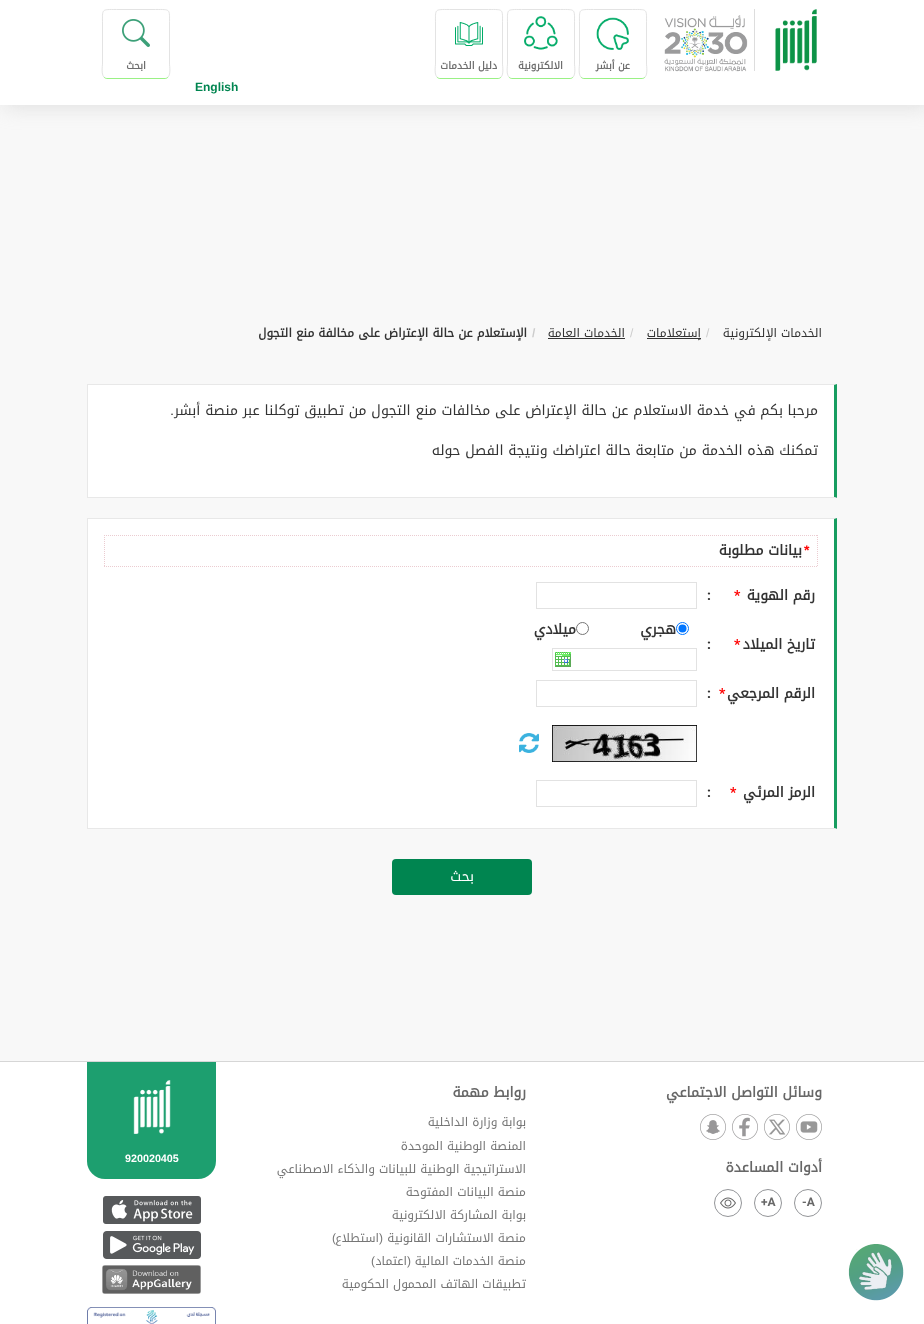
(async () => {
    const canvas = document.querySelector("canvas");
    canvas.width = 924;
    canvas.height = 1324;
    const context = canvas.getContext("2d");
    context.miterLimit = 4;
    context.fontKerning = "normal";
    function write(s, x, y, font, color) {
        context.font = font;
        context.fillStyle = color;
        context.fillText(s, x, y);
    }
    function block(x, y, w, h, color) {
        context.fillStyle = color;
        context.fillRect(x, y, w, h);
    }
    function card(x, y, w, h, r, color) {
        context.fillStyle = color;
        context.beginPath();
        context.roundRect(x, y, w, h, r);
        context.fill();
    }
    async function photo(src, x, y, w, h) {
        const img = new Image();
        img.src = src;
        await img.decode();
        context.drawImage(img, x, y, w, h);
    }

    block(0, 0, 924, 1324, "rgb(248, 248, 248)");
    context.fillStyle = "rgba(199, 199, 199, 0.5)";
    context.filter = "blur(10px)";
    context.beginPath();
    context.rect(4, 2, 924, 105);
    context.fill();
    context.filter = "none";
    block(0, 0, 924, 105, "rgb(255, 255, 255)");
    await photo("media/1.png", 775, 9, 42, 62);
    block(754, 9, 1, 62, "rgb(221, 221, 221)");
    await photo("media/2.png", 664, 15, 84, 57);
    context.beginPath();
    context.moveTo(645, 77);
    context.bezierCurveTo(644.5, 78, 643, 78.5, 642, 78.5);
    context.lineTo(584, 78.5);
    context.bezierCurveTo(583, 78.5, 581.5, 78, 581, 77);
    context.strokeStyle = "rgb(154, 241, 133)";
    context.stroke();
    context.beginPath();
    context.moveTo(581, 77);
    context.bezierCurveTo(578, 74.5, 579.5, 65.5, 579.5, 64);
    context.lineTo(579.5, 24);
    context.bezierCurveTo(579.5, 8.5, 578, 9.5, 593.5, 9.5);
    context.lineTo(632.5, 9.5);
    context.bezierCurveTo(648, 9.5, 646.5, 8.5, 646.5, 24);
    context.lineTo(646.5, 64);
    context.bezierCurveTo(646.5, 65.5, 648, 74.5, 645, 77);
    context.strokeStyle = "rgb(227, 227, 227)";
    context.stroke();
    await photo("media/3.png", 596, 17, 33, 33);
    context.direction = "rtl";
    write("عن أبشر", 630, 69, "bold 10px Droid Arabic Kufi", "rgb(110, 110, 110)");
    context.beginPath();
    context.moveTo(573, 77);
    context.bezierCurveTo(572.5, 78, 571, 78.5, 570, 78.5);
    context.lineTo(512, 78.5);
    context.bezierCurveTo(511, 78.5, 509.5, 78, 509, 77);
    context.strokeStyle = "rgb(154, 241, 133)";
    context.stroke();
    context.beginPath();
    context.moveTo(509, 77);
    context.bezierCurveTo(506, 74.5, 507.5, 65.5, 507.5, 64);
    context.lineTo(507.5, 24);
    context.bezierCurveTo(507.5, 8.5, 506, 9.5, 521.5, 9.5);
    context.lineTo(560.5, 9.5);
    context.bezierCurveTo(576, 9.5, 574.5, 8.5, 574.5, 24);
    context.lineTo(574.5, 64);
    context.bezierCurveTo(574.5, 65.5, 576, 74.5, 573, 77);
    context.strokeStyle = "rgb(227, 227, 227)";
    context.stroke();
    await photo("media/4.png", 523, 16, 37, 38);
    write("الالكترونية", 563, 69, "bold 10px Droid Arabic Kufi", "rgb(110, 110, 110)");
    context.beginPath();
    context.moveTo(501, 77);
    context.bezierCurveTo(500.5, 78, 499, 78.5, 498, 78.5);
    context.lineTo(440, 78.5);
    context.bezierCurveTo(439, 78.5, 437.5, 78, 437, 77);
    context.strokeStyle = "rgb(154, 241, 133)";
    context.stroke();
    context.beginPath();
    context.moveTo(437, 77);
    context.bezierCurveTo(434, 74.5, 435.5, 65.5, 435.5, 64);
    context.lineTo(435.5, 24);
    context.bezierCurveTo(435.5, 8.5, 434, 9.5, 449.5, 9.5);
    context.lineTo(488.5, 9.5);
    context.bezierCurveTo(504, 9.5, 502.5, 8.5, 502.5, 24);
    context.lineTo(502.5, 64);
    context.bezierCurveTo(502.5, 65.5, 504, 74.5, 501, 77);
    context.strokeStyle = "rgb(227, 227, 227)";
    context.stroke();
    await photo("media/5.png", 455, 22, 28, 24);
    write("دليل الخدمات", 497, 69, "bold 10px Droid Arabic Kufi", "rgb(110, 110, 110)");
    context.beginPath();
    context.moveTo(168, 77);
    context.bezierCurveTo(167.5, 78, 166, 78.5, 165, 78.5);
    context.lineTo(107, 78.5);
    context.bezierCurveTo(106, 78.5, 104.5, 78, 104, 77);
    context.strokeStyle = "rgb(154, 241, 133)";
    context.stroke();
    context.beginPath();
    context.moveTo(104, 77);
    context.bezierCurveTo(101, 74.5, 102.5, 65.5, 102.5, 64);
    context.lineTo(102.5, 24);
    context.bezierCurveTo(102.5, 8.5, 101, 9.5, 116.5, 9.5);
    context.lineTo(155.5, 9.5);
    context.bezierCurveTo(171, 9.5, 169.5, 8.5, 169.5, 24);
    context.lineTo(169.5, 64);
    context.bezierCurveTo(169.5, 65.5, 171, 74.5, 168, 77);
    context.strokeStyle = "rgb(227, 227, 227)";
    context.stroke();
    await photo("media/6.png", 122, 19, 28, 28);
    write("ابحث", 146, 69, "bold 10px Droid Arabic Kufi", "rgb(110, 110, 110)");
    context.direction = "ltr";
    write("English", 195, 91, "bold 12px Liberation Sans", "rgb(0, 133, 80)");
    context.direction = "rtl";
    write("الخدمات الإلكترونية", 822, 337, "12px Droid Arabic Kufi", "rgb(51, 51, 51)");
    context.direction = "ltr";
    write("/", 706, 337, "12px Liberation Sans", "rgb(204, 204, 204)");
    block(647, 338, 54, 1, "rgb(51, 51, 51)");
    context.direction = "rtl";
    write("إستعلامات", 701, 337, "12px Droid Arabic Kufi", "rgb(51, 51, 51)");
    context.direction = "ltr";
    write("/", 630, 337, "12px Liberation Sans", "rgb(204, 204, 204)");
    context.direction = "rtl";
    write("الخدمات العامة", 625, 337, "12px Droid Arabic Kufi", "rgb(51, 51, 51)");
    block(548, 338, 77, 1, "rgb(51, 51, 51)");
    context.direction = "ltr";
    write("/", 532, 337, "bold 12px Liberation Sans", "rgb(204, 204, 204)");
    context.direction = "rtl";
    write("الإستعلام عن حالة الإعتراض على مخالفة منع التجول", 527, 337, "bold 12px Droid Arabic Kufi", "rgb(51, 51, 51)");
    block(88, 385, 746, 112, "rgb(255, 255, 255)");
    context.fillStyle = "rgb(232, 232, 232)";
    context.beginPath();
    context.moveTo(87, 384);
    context.lineTo(837, 384);
    context.lineTo(834, 385);
    context.lineTo(88, 385);
    context.closePath();
    context.fill();
    context.fillStyle = "rgb(23, 157, 96)";
    context.beginPath();
    context.moveTo(837, 384);
    context.lineTo(837, 498);
    context.lineTo(834, 497);
    context.lineTo(834, 385);
    context.closePath();
    context.fill();
    context.fillStyle = "rgb(232, 232, 232)";
    context.beginPath();
    context.moveTo(837, 498);
    context.lineTo(87, 498);
    context.lineTo(88, 497);
    context.lineTo(834, 497);
    context.closePath();
    context.fill();
    block(87, 384, 1, 114, "rgb(232, 232, 232)");
    write(".", 174, 415, "14px Roboto", "rgb(51, 51, 51)");
    write("مرحبا بكم في خدمة الاستعلام عن حالة الإعتراض على مخالفات منع التجول من تطبيق توكلنا عبر منصة أبشر", 818, 415, "14px Droid Arabic Kufi", "rgb(51, 51, 51)");
    write("تمكنك هذه الخدمة من متابعة حالة اعتراضك ونتيجة الفصل حوله", 818, 455, "14px Droid Arabic Kufi", "rgb(51, 51, 51)");
    block(88, 519, 746, 309, "rgb(255, 255, 255)");
    context.fillStyle = "rgb(232, 232, 232)";
    context.beginPath();
    context.moveTo(87, 518);
    context.lineTo(837, 518);
    context.lineTo(834, 519);
    context.lineTo(88, 519);
    context.closePath();
    context.fill();
    context.fillStyle = "rgb(23, 157, 96)";
    context.beginPath();
    context.moveTo(837, 518);
    context.lineTo(837, 829);
    context.lineTo(834, 828);
    context.lineTo(834, 519);
    context.closePath();
    context.fill();
    context.fillStyle = "rgb(232, 232, 232)";
    context.beginPath();
    context.moveTo(837, 829);
    context.lineTo(87, 829);
    context.lineTo(88, 828);
    context.lineTo(834, 828);
    context.closePath();
    context.fill();
    block(87, 518, 1, 311, "rgb(232, 232, 232)");
    context.beginPath();
    context.moveTo(104, 535.5);
    context.lineTo(818, 535.5);
    context.strokeStyle = "rgb(235, 204, 209)";
    context.setLineDash([1, 1]);
    context.stroke();
    context.beginPath();
    context.moveTo(817.5, 535);
    context.lineTo(817.5, 567);
    context.stroke();
    context.beginPath();
    context.moveTo(104, 566.5);
    context.lineTo(818, 566.5);
    context.stroke();
    context.beginPath();
    context.moveTo(104.5, 535);
    context.lineTo(104.5, 567);
    context.stroke();
    context.direction = "ltr";
    write("*", 804, 555, "bold 14px Liberation Sans", "rgb(255, 0, 0)");
    context.direction = "rtl";
    write("بيانات مطلوبة", 802, 555, "bold 14px Droid Arabic Kufi", "rgb(51, 51, 51)");
    write("رقم الهوية", 815, 600, "bold 14px Droid Arabic Kufi", "rgb(51, 51, 51)");
    context.direction = "ltr";
    write("*", 734, 600, "bold 14px Roboto", "rgb(255, 0, 0)");
    write(":", 707, 600, "bold 14px Roboto", "rgb(51, 51, 51)");
    context.strokeStyle = "rgb(226, 226, 226)";
    context.setLineDash([]);
    context.strokeRect(536.5, 582.5, 160, 26);
    context.beginPath();
    context.arc(682.5, 628.5, 6, 0, Math.PI * 2);
    context.strokeStyle = "rgb(0, 117, 255)";
    context.stroke();
    context.fillStyle = "rgb(0, 117, 255)";
    context.beginPath();
    context.arc(682.5, 628.5, 4, 0, Math.PI * 2);
    context.fill();
    context.direction = "rtl";
    write("هجري", 676, 634, "bold 14px Droid Arabic Kufi", "rgb(51, 51, 51)");
    context.beginPath();
    context.arc(582.5, 628.5, 6, 0, Math.PI * 2);
    context.strokeStyle = "rgb(118, 118, 118)";
    context.stroke();
    write("ميلادي", 576, 634, "bold 14px Droid Arabic Kufi", "rgb(51, 51, 51)");
    context.strokeStyle = "rgb(226, 226, 226)";
    context.strokeRect(552.5, 648.5, 144, 22);
    await photo("media/7.png", 555, 652, 16, 15);
    write("تاريخ الميلاد", 815, 649, "bold 14px Droid Arabic Kufi", "rgb(51, 51, 51)");
    context.direction = "ltr";
    write("*", 734, 649, "bold 14px Roboto", "rgb(255, 0, 0)");
    write(":", 707, 649, "bold 14px Roboto", "rgb(51, 51, 51)");
    context.direction = "rtl";
    write("الرقم المرجعي", 815, 698, "bold 14px Droid Arabic Kufi", "rgb(51, 51, 51)");
    context.direction = "ltr";
    write("*", 719, 698, "bold 14px Roboto", "rgb(255, 0, 0)");
    write(":", 707, 698, "bold 14px Roboto", "rgb(51, 51, 51)");
    context.strokeRect(536.5, 680.5, 160, 26);
    await photo("media/8.png", 552, 725, 145, 37);
    await photo("media/9.png", 519, 733, 20, 20);
    context.direction = "rtl";
    write("الرمز المرئي", 815, 797, "bold 14px Droid Arabic Kufi", "rgb(51, 51, 51)");
    context.direction = "ltr";
    write("*", 730, 797, "bold 14px Roboto", "rgb(255, 0, 0)");
    write(":", 707, 797, "bold 14px Roboto", "rgb(51, 51, 51)");
    context.strokeRect(536.5, 780.5, 160, 26);
    card(392, 859, 140, 36, 4, "rgb(0, 133, 80)");
    context.direction = "rtl";
    write("بحث", 474, 881, "14px Droid Arabic Kufi", "rgb(255, 255, 255)");
    block(0, 1062, 924, 262, "rgb(255, 255, 255)");
    await photo("media/10.png", 848, 1244, 56, 57);
    block(0, 1061, 924, 1, "rgb(214, 214, 214)");
    write("وسائل التواصل الاجتماعي", 822, 1097, "bold 14px Droid Arabic Kufi", "rgb(103, 103, 103)");
    await photo("media/11.png", 796, 1114, 26, 26);
    await photo("media/12.png", 764, 1114, 26, 26);
    await photo("media/13.png", 732, 1114, 26, 26);
    await photo("media/14.png", 700, 1114, 26, 26);
    write("أدوات المساعدة", 822, 1172, "bold 14px Droid Arabic Kufi", "rgb(103, 103, 103)");
    context.beginPath();
    context.arc(808, 1203, 13.5, 0, Math.PI * 2);
    context.strokeStyle = "rgb(147, 149, 152)";
    context.stroke();
    context.direction = "ltr";
    write("-A", 802, 1206, "bold 12px Roboto", "rgb(103, 103, 103)");
    context.beginPath();
    context.arc(768, 1203, 13.5, 0, Math.PI * 2);
    context.stroke();
    write("+A", 761, 1206, "bold 12px Roboto", "rgb(103, 103, 103)");
    context.beginPath();
    context.arc(728, 1203, 13.5, 0, Math.PI * 2);
    context.stroke();
    await photo("media/15.png", 720, 1197, 16, 12);
    context.direction = "rtl";
    write("روابط مهمة", 526, 1097, "bold 14px Droid Arabic Kufi", "rgb(103, 103, 103)");
    write("بوابة وزارة الداخلية", 526, 1126, "12px Droid Arabic Kufi", "rgb(118, 118, 118)");
    write("المنصة الوطنية الموحدة", 526, 1150, "12px Droid Arabic Kufi", "rgb(118, 118, 118)");
    write("الاستراتيجية الوطنية للبيانات والذكاء الاصطناعي", 526, 1173, "12px Droid Arabic Kufi", "rgb(118, 118, 118)");
    write("منصة البيانات المفتوحة", 526, 1196, "12px Droid Arabic Kufi", "rgb(118, 118, 118)");
    write("بوابة المشاركة الالكترونية", 526, 1219, "12px Droid Arabic Kufi", "rgb(118, 118, 118)");
    write("منصة الاستشارات القانونية", 526, 1242, "12px Droid Arabic Kufi", "rgb(118, 118, 118)");
    write("(", 383, 1242, "12px Liberation Sans", "rgb(118, 118, 118)");
    write("استطلاع", 379, 1242, "12px Droid Arabic Kufi", "rgb(118, 118, 118)");
    write(")", 336, 1242, "12px Liberation Sans", "rgb(118, 118, 118)");
    write("منصة الخدمات المالية", 526, 1265, "12px Droid Arabic Kufi", "rgb(118, 118, 118)");
    write("(", 411, 1265, "12px Liberation Sans", "rgb(118, 118, 118)");
    write("اعتماد", 407, 1265, "12px Droid Arabic Kufi", "rgb(118, 118, 118)");
    write(")", 375, 1265, "12px Liberation Sans", "rgb(118, 118, 118)");
    write("تطبيقات الهاتف المحمول الحكومية", 526, 1288, "12px Droid Arabic Kufi", "rgb(118, 118, 118)");
    block(87, 1062, 129, 89, "rgb(29, 159, 111)");
    await photo("media/16.png", 133, 1080, 38, 54);
    context.beginPath();
    context.roundRect(87, 1151, 129, 28, [0, 0, 18, 18]);
    context.fill();
    context.direction = "ltr";
    write("920020405", 125, 1162, "bold 10.75px Liberation Sans", "rgb(255, 255, 255)");
    await photo("media/17.png", 103, 1196, 98, 28);
    await photo("media/18.png", 103, 1231, 98, 28);
    await photo("media/19.png", 102, 1265, 99, 29);
    await photo("media/20.png", 87, 1307, 129, 17);
})();
